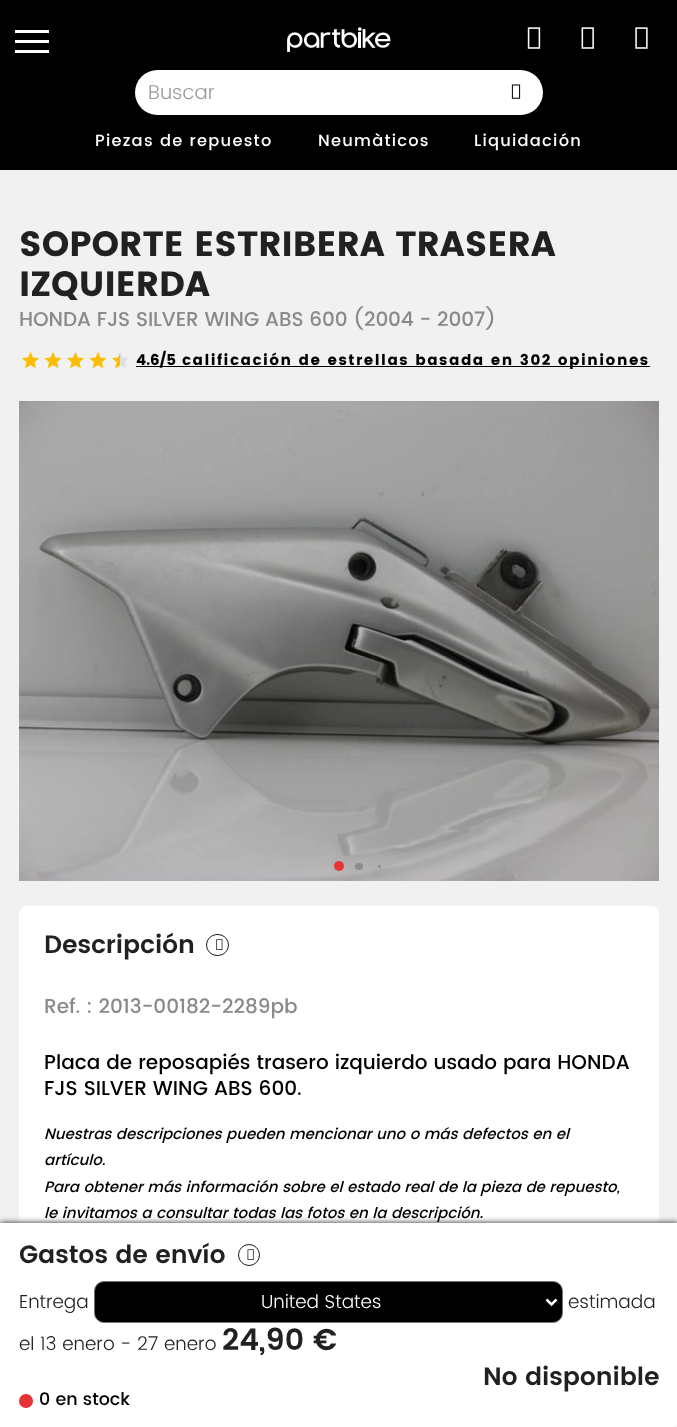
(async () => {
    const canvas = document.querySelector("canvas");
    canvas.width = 677;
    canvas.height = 1427;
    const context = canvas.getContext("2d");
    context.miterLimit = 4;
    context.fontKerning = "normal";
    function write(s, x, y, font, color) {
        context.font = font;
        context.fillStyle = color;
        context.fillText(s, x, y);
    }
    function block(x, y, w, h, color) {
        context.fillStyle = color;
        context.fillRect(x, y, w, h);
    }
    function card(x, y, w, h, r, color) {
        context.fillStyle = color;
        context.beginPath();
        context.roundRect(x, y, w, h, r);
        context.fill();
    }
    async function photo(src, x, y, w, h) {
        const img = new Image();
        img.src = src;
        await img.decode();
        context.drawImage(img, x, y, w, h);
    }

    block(0, 0, 677, 1427, "rgb(241, 241, 241)");
    block(0, 0, 677, 170, "rgb(0, 0, 0)");
    block(15, 30, 34, 3, "rgb(255, 255, 255)");
    block(15, 40, 34, 3, "rgb(255, 255, 255)");
    block(15, 50, 34, 3, "rgb(255, 255, 255)");
    await photo("media/1.png", 287, 27, 104, 25);
    await photo("media/2.png", 527, 27, 14, 22);
    await photo("media/3.png", 581, 27, 13, 22);
    await photo("media/4.png", 635, 27, 13, 22);
    context.beginPath();
    context.roundRect(135, 70, 375, 45, [22.5, 0, 0, 22.5]);
    context.fill();
    write("Buscar", 148, 99, "300 20px Poppins", "rgb(153, 153, 153)");
    context.fillStyle = "rgb(255, 255, 255)";
    context.beginPath();
    context.roundRect(510, 70, 33, 45, [0, 22.5, 22.5, 0]);
    context.fill();
    await photo("media/5.png", 511, 84, 10, 15);
    context.letterSpacing = "1.25px";
    write("Piezas de repuesto", 95, 146, "500 16.25px Poppins", "rgb(255, 255, 255)");
    write("Neumàticos", 318, 146, "500 16.25px Poppins", "rgb(255, 255, 255)");
    write("Liquidación", 474, 146, "500 16.25px Poppins", "rgb(255, 255, 255)");
    context.letterSpacing = "0px";
    write("SOPORTE ESTRIBERA TRASERA", 19, 256, "bold 35px Poppins", "rgb(33, 33, 33)");
    write("IZQUIERDA", 19, 296, "bold 35px Poppins", "rgb(33, 33, 33)");
    context.letterSpacing = "-0.1px";
    write("HONDA FJS SILVER WING ABS 600 (2004 - 2007)", 19, 326, "500 20px Poppins", "rgb(138, 138, 138)");
    await photo("media/6.png", 21, 351, 18, 17);
    await photo("media/7.png", 44, 352, 17, 16);
    await photo("media/6.png", 66, 351, 18, 17);
    await photo("media/7.png", 89, 352, 17, 16);
    await photo("media/8.png", 111, 352, 18, 16);
    block(136, 366, 514, 1, "rgb(0, 0, 0)");
    context.letterSpacing = "0px";
    write("4.6/5", 136, 365, "bold 15px Poppins", "rgb(0, 0, 0)");
    context.letterSpacing = "1.5px";
    write("calificación de estrellas basada en 302 opiniones", 182, 365, "bold 15px Poppins", "rgb(0, 0, 0)");
    card(19, 906, 640, 358, 8, "rgb(255, 255, 255)");
    context.fillStyle = "rgb(33, 33, 33)";
    context.filter = "blur(3px)";
    context.beginPath();
    context.rect(0, 1223, 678, 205);
    context.fill();
    context.filter = "none";
    block(0, 1223, 677, 204, "rgb(255, 255, 255)");
    context.letterSpacing = "-0.1px";
    write("Gastos de envío", 19, 1263, "600 25px Poppins", "rgb(33, 33, 33)");
    context.beginPath();
    context.arc(249, 1255, 10.5, 0, Math.PI * 2);
    context.strokeStyle = "rgb(33, 33, 33)";
    context.stroke();
    await photo("media/9.png", 247, 1249, 7, 11);
    context.letterSpacing = "0px";
    write("Entrega", 19, 1308, "300 18.75px Poppins", "rgb(33, 33, 33)");
    context.fillStyle = "rgb(0, 0, 0)";
    context.beginPath();
    context.roundRect(94.5, 1281.5, 468, 41, 9.5);
    context.fill();
    context.strokeStyle = "rgb(118, 118, 118)";
    context.stroke();
    context.beginPath();
    context.moveTo(546.5, 1299.5);
    context.lineTo(551.5, 1304.5);
    context.lineTo(556.5, 1299.5);
    context.strokeStyle = "rgb(255, 255, 255)";
    context.lineWidth = 2.5;
    context.stroke();
    write("United States", 261, 1308, "300 18.75px Poppins", "rgb(255, 255, 255)");
    write("estimada", 568, 1308, "300 18.75px Poppins", "rgb(33, 33, 33)");
    write("el 13 enero - 27 enero", 19, 1350, "300 18.75px Poppins", "rgb(33, 33, 33)");
    write("24,90 €", 222, 1350, "600 30px Poppins", "rgb(33, 33, 33)");
    context.letterSpacing = "-0.1px";
    write("No disponible", 483, 1385, "600 25px Poppins", "rgb(33, 33, 33)");
    context.fillStyle = "rgb(231, 51, 54)";
    context.beginPath();
    context.arc(26, 1401, 7, 0, Math.PI * 2);
    context.fill();
    context.letterSpacing = "0px";
    write("0 en stock", 39, 1405, "500 17.5px Poppins", "rgb(0, 0, 0)");
    await photo("media/10.png", 19, 401, 640, 480);
    context.fillStyle = "rgb(231, 51, 54)";
    context.beginPath();
    context.arc(339, 866, 5, 0, Math.PI * 2);
    context.fill();
    card(355, 863, 8, 7, 3.5, "rgba(0, 0, 0, 0.2)");
    context.fillStyle = "rgb(140, 140, 140)";
    context.beginPath();
    context.arc(379.5, 866.5, 1.5, 0, Math.PI * 2);
    context.fill();
    context.letterSpacing = "-0.1px";
    write("Descripción", 44, 953, "600 25px Poppins", "rgb(33, 33, 33)");
    context.beginPath();
    context.roundRect(206.5, 934.5, 22, 21, 10.5);
    context.strokeStyle = "rgb(33, 33, 33)";
    context.lineWidth = 1;
    context.stroke();
    await photo("media/11.png", 216, 939, 7, 11);
    context.letterSpacing = "0px";
    write("Ref. : 2013-00182-2289pb", 44, 1013, "500 20px Poppins", "rgb(138, 138, 138)");
    write("Placa de reposapiés trasero izquierdo usado para HONDA", 44, 1069, "500 20px Poppins", "rgb(0, 0, 0)");
    write("FJS SILVER WING ABS 600.", 44, 1095, "500 20px Poppins", "rgb(0, 0, 0)");
    write("Nuestras descripciones pueden mencionar uno o más defectos en el", 44, 1139, "italic 500 15px Poppins", "rgb(0, 0, 0)");
    write("artículo.", 44, 1165, "italic 500 15px Poppins", "rgb(0, 0, 0)");
    write("Para obtener más información sobre el estado real de la pieza de repuesto,", 44, 1192, "italic 500 15px Poppins", "rgb(0, 0, 0)");
    write("le invitamos a consultar todas las fotos en la descripción.", 44, 1218, "italic 500 15px Poppins", "rgb(0, 0, 0)");
    block(675, 1425, 2, 2, "rgb(245, 245, 245)");
})();
